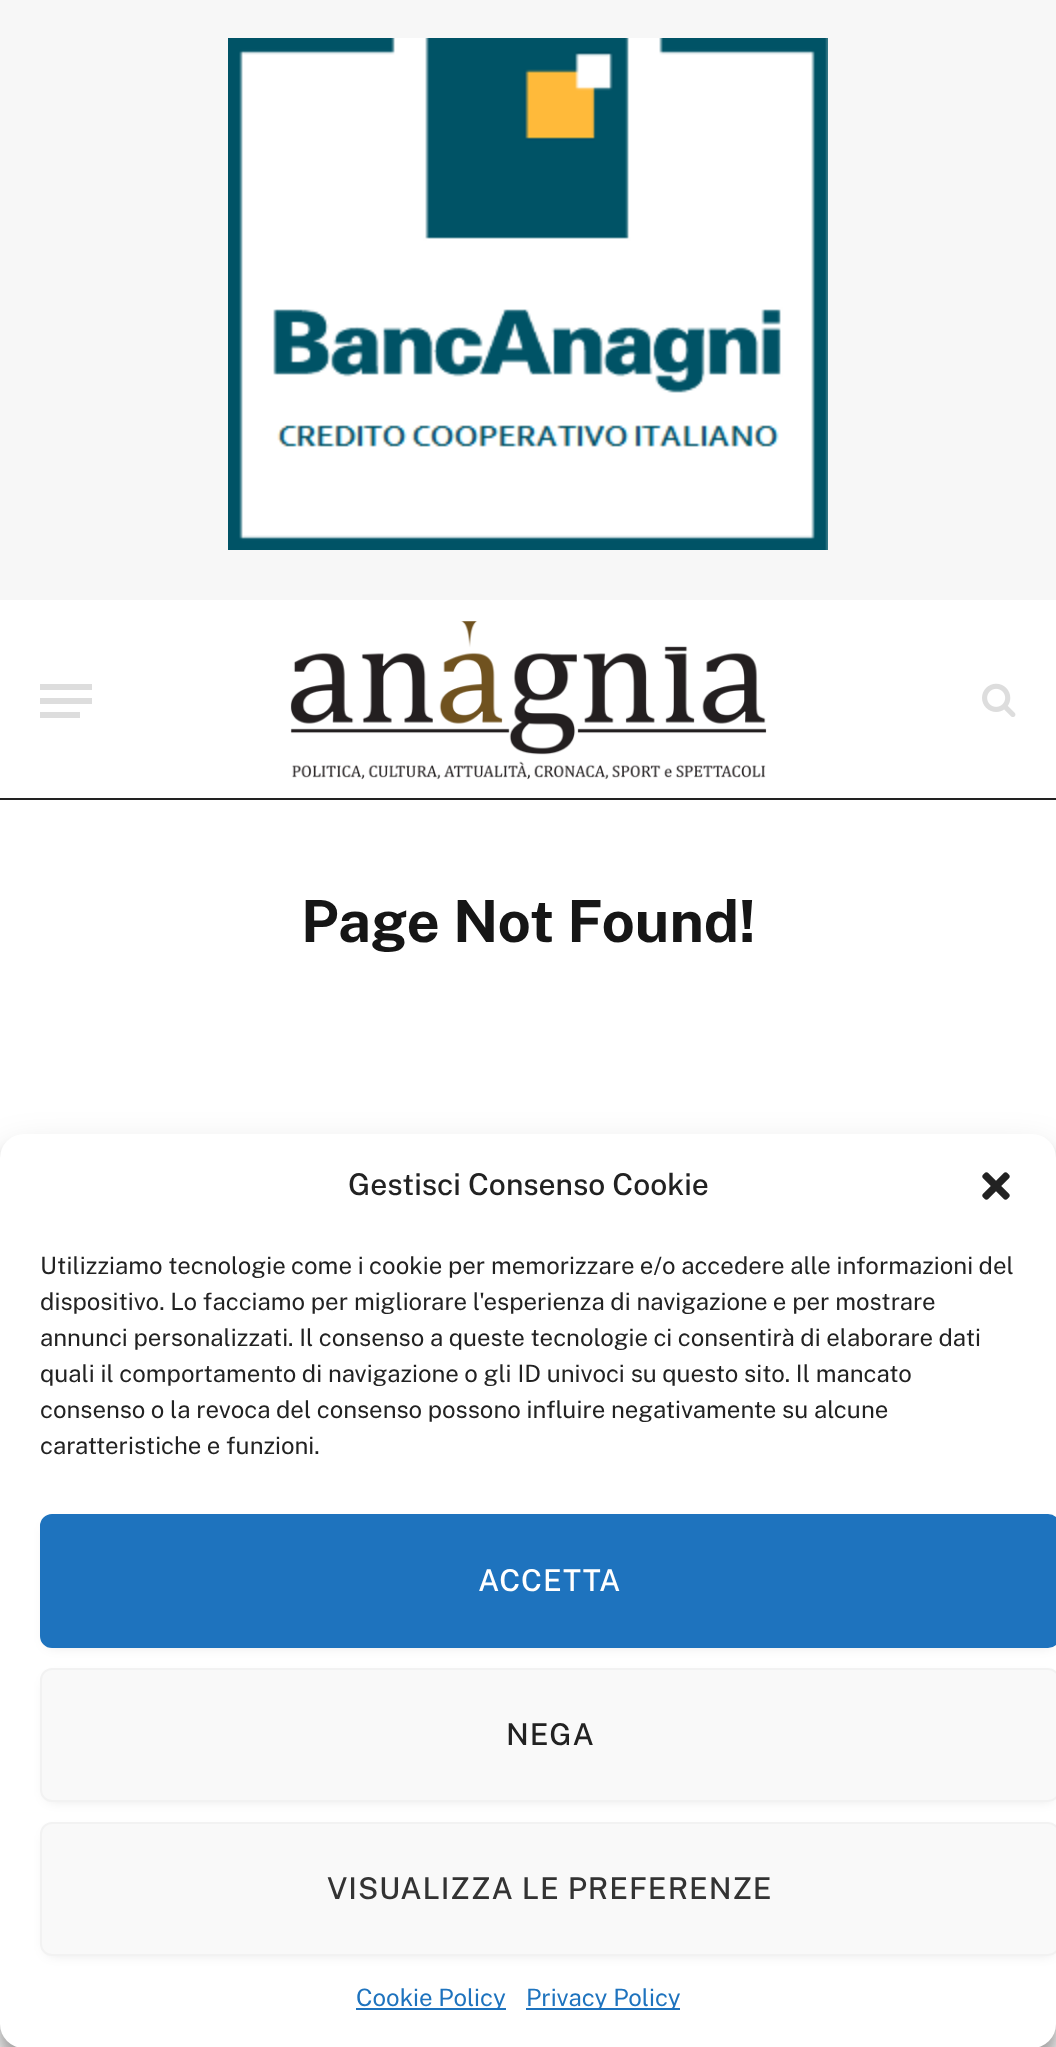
(async () => {
    const canvas = document.querySelector("canvas");
    canvas.width = 1056;
    canvas.height = 2047;
    const context = canvas.getContext("2d");
    context.miterLimit = 4;
    context.fontKerning = "normal";
    function write(s, x, y, font, color) {
        context.font = font;
        context.fillStyle = color;
        context.fillText(s, x, y);
    }
    function block(x, y, w, h, color) {
        context.fillStyle = color;
        context.fillRect(x, y, w, h);
    }
    function card(x, y, w, h, r, color) {
        context.fillStyle = color;
        context.beginPath();
        context.roundRect(x, y, w, h, r);
        context.fill();
    }
    async function photo(src, x, y, w, h) {
        const img = new Image();
        img.src = src;
        await img.decode();
        context.drawImage(img, x, y, w, h);
    }

    block(0, 0, 1056, 2047, "rgb(255, 255, 255)");
    block(0, 0, 1056, 600, "rgb(247, 247, 247)");
    await photo("media/1.png", 228, 38, 600, 512);
    block(0, 798, 1056, 2, "rgb(34, 34, 34)");
    block(40, 712, 40, 6, "rgb(221, 221, 221)");
    block(40, 684, 52, 6, "rgb(221, 221, 221)");
    block(40, 698, 52, 6, "rgb(221, 221, 221)");
    await photo("media/2.png", 290, 621, 477, 159);
    await photo("media/3.png", 982, 683, 34, 34);
    write("Page Not Found!", 301, 942, "bold 58px Public Sans", "rgb(22, 22, 22)");
    block(0, 2024, 1056, 23, "rgb(247, 247, 247)");
    context.fillStyle = "rgba(0, 0, 0, 0.23)";
    context.filter = "blur(6px)";
    context.beginPath();
    context.roundRect(0, 1146, 1056, 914, 24);
    context.fill();
    context.filter = "none";
    context.fillStyle = "rgba(0, 0, 0, 0.19)";
    context.filter = "blur(20px)";
    context.beginPath();
    context.roundRect(0, 1154, 1056, 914, 24);
    context.fill();
    context.filter = "none";
    card(0, 1134, 1056, 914, 24, "rgb(255, 255, 255)");
    write("Gestisci Consenso Cookie", 348, 1195, "500 30px Public Sans", "rgb(34, 34, 34)");
    await photo("media/4.png", 982, 1172, 28, 28);
    write("Utilizziamo tecnologie come i cookie per memorizzare e/o accedere alle informazioni del", 40, 1274, "24px Public Sans", "rgb(34, 34, 34)");
    write("dispositivo. Lo facciamo per migliorare l'esperienza di navigazione e per mostrare", 40, 1310, "24px Public Sans", "rgb(34, 34, 34)");
    write("annunci personalizzati. Il consenso a queste tecnologie ci consentirà di elaborare dati", 40, 1346, "24px Public Sans", "rgb(34, 34, 34)");
    write("quali il comportamento di navigazione o gli ID univoci su questo sito. Il mancato", 40, 1382, "24px Public Sans", "rgb(34, 34, 34)");
    write("consenso o la revoca del consenso possono influire negativamente su alcune", 40, 1418, "24px Public Sans", "rgb(34, 34, 34)");
    write("caratteristiche e funzioni.", 40, 1454, "24px Public Sans", "rgb(34, 34, 34)");
    context.fillStyle = "rgba(0, 0, 0, 0.16)";
    context.filter = "blur(7px)";
    context.beginPath();
    context.roundRect(48, 1526, 1004, 118, 4);
    context.fill();
    context.filter = "none";
    context.fillStyle = "rgb(30, 115, 190)";
    context.beginPath();
    context.roundRect(41, 1515, 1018, 132, 11);
    context.fill();
    context.strokeStyle = "rgb(30, 115, 190)";
    context.lineWidth = 2;
    context.stroke();
    context.letterSpacing = "0.9px";
    write("ACCETTA", 478, 1591, "500 30px Public Sans", "rgb(255, 255, 255)");
    context.fillStyle = "rgba(0, 0, 0, 0.16)";
    context.filter = "blur(7px)";
    context.beginPath();
    context.roundRect(48, 1680, 1004, 118, 4);
    context.fill();
    context.filter = "none";
    context.fillStyle = "rgb(249, 249, 249)";
    context.beginPath();
    context.roundRect(41, 1669, 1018, 132, 11);
    context.fill();
    context.strokeStyle = "rgb(242, 242, 242)";
    context.stroke();
    write("NEGA", 506, 1745, "500 30px Public Sans", "rgb(34, 34, 34)");
    context.fillStyle = "rgba(0, 0, 0, 0.16)";
    context.filter = "blur(7px)";
    context.beginPath();
    context.roundRect(48, 1834, 1004, 118, 4);
    context.fill();
    context.filter = "none";
    context.fillStyle = "rgb(249, 249, 249)";
    context.beginPath();
    context.roundRect(41, 1823, 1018, 132, 11);
    context.fill();
    context.stroke();
    write("VISUALIZZA LE PREFERENZE", 327, 1899, "500 30px Public Sans", "rgb(51, 51, 51)");
    block(356, 2008, 150, 2, "rgb(30, 115, 190)");
    context.letterSpacing = "0px";
    write("Cookie Policy", 356, 2006, "24px Public Sans", "rgb(30, 115, 190)");
    block(526, 2008, 154, 2, "rgb(30, 115, 190)");
    write("Privacy Policy", 526, 2006, "24px Public Sans", "rgb(30, 115, 190)");
})();
